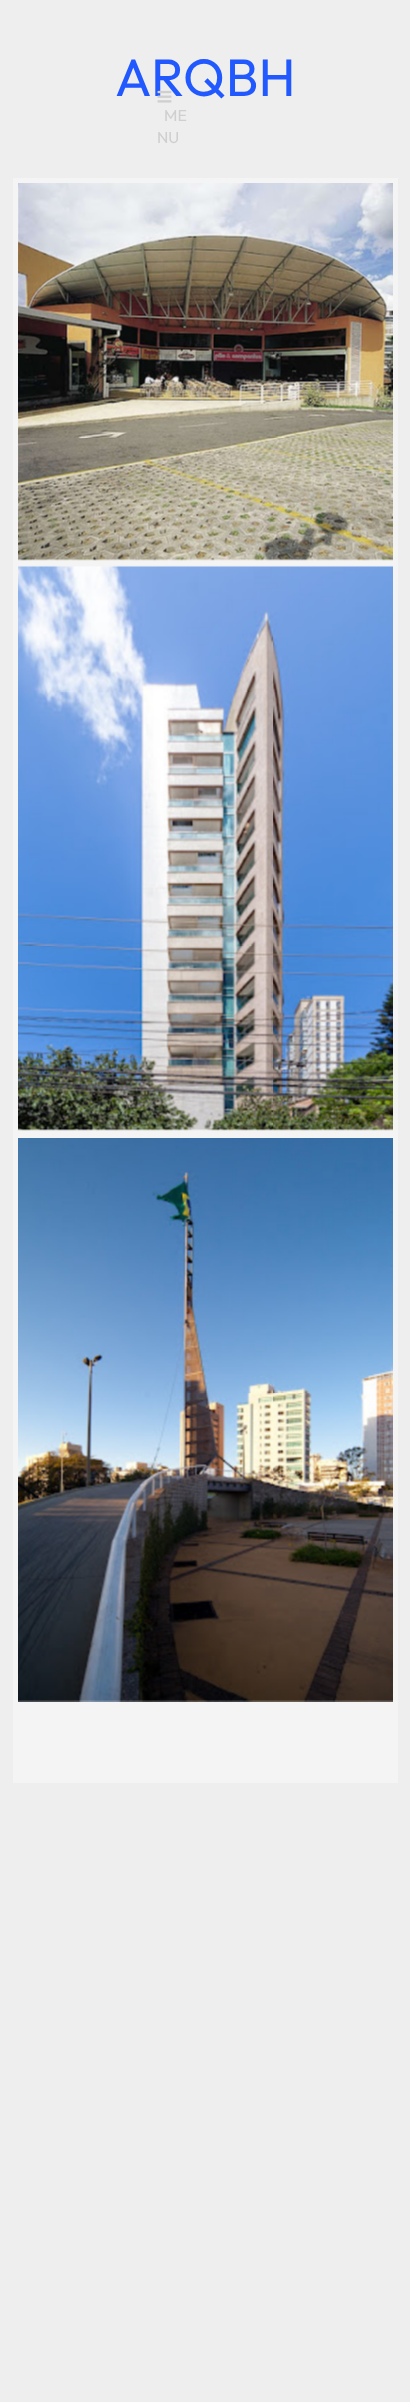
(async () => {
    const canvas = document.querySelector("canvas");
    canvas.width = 410;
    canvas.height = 2402;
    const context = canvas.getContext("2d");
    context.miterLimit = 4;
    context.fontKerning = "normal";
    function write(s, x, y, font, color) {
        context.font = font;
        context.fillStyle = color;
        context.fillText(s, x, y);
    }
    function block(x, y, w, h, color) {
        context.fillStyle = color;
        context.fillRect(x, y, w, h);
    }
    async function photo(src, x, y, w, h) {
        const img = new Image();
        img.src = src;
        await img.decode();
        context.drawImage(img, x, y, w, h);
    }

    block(0, 0, 410, 2402, "rgb(238, 238, 238)");
    write("ARQBH", 115, 96, "100 52.5px Outfit", "rgb(33, 89, 255)");
    block(13, 178, 385, 1605, "rgb(244, 244, 244)");
    await photo("media/1.png", 18, 183, 375, 378);
    await photo("media/2.png", 18, 565, 375, 566);
    await photo("media/3.png", 18, 1138, 375, 564);
    await photo("media/4.png", 157, 90, 15, 13);
    write("ME", 164, 121, "100 16px Outfit", "rgb(207, 207, 207)");
    write("NU", 157, 143, "100 16px Outfit", "rgb(207, 207, 207)");
})();
